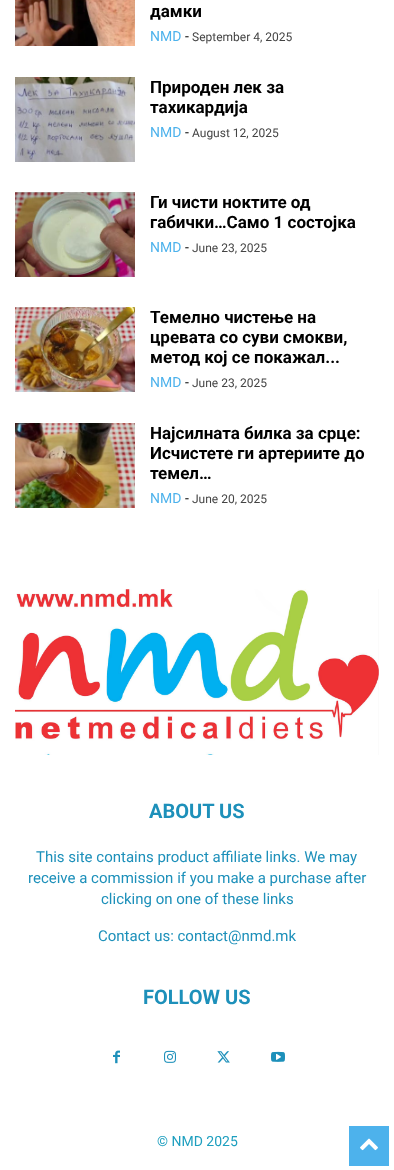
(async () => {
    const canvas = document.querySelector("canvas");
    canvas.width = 394;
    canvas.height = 1170;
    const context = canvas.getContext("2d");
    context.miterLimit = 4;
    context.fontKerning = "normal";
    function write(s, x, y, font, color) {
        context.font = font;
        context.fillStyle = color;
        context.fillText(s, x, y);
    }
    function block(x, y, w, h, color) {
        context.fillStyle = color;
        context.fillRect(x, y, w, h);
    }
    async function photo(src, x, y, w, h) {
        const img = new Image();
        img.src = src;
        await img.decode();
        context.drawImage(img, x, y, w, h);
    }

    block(0, 0, 394, 1170, "rgb(255, 255, 255)");
    await photo("media/1.png", 15, 0, 120, 46);
    write("дамки", 150, 17, "bold 17px Roboto", "rgb(0, 0, 0)");
    write("NMD", 150, 41, "14px Roboto", "rgb(77, 178, 236)");
    write("-", 185, 41, "14px Roboto", "rgb(0, 0, 0)");
    write("September 4, 2025", 192, 41, "12px Roboto", "rgb(68, 68, 68)");
    await photo("media/2.png", 15, 77, 120, 85);
    write("Природен лек за", 150, 93, "bold 17px Roboto", "rgb(0, 0, 0)");
    write("тахикардија", 150, 113, "bold 17px Roboto", "rgb(0, 0, 0)");
    write("NMD", 150, 137, "14px Roboto", "rgb(77, 178, 236)");
    write("-", 185, 137, "14px Roboto", "rgb(0, 0, 0)");
    write("August 12, 2025", 192, 137, "12px Roboto", "rgb(68, 68, 68)");
    await photo("media/3.png", 15, 192, 120, 85);
    write("Ги чисти ноктите од", 150, 208, "bold 17px Roboto", "rgb(0, 0, 0)");
    write("габички…Само 1 состојка", 150, 228, "bold 17px Roboto", "rgb(0, 0, 0)");
    write("NMD", 150, 252, "14px Roboto", "rgb(77, 178, 236)");
    write("-", 185, 252, "14px Roboto", "rgb(0, 0, 0)");
    write("June 23, 2025", 192, 252, "12px Roboto", "rgb(68, 68, 68)");
    await photo("media/4.png", 15, 307, 120, 85);
    write("Темелно чистење на", 150, 323, "bold 17px Roboto", "rgb(0, 0, 0)");
    write("цревата со суви смокви,", 150, 343, "bold 17px Roboto", "rgb(0, 0, 0)");
    write("метод кој се покажал...", 150, 363, "bold 17px Roboto", "rgb(0, 0, 0)");
    write("NMD", 150, 387, "14px Roboto", "rgb(77, 178, 236)");
    write("-", 185, 387, "14px Roboto", "rgb(0, 0, 0)");
    write("June 23, 2025", 192, 387, "12px Roboto", "rgb(68, 68, 68)");
    await photo("media/5.png", 15, 423, 120, 85);
    write("Најсилната билка за срце:", 150, 439, "bold 17px Roboto", "rgb(0, 0, 0)");
    write("Исчистете ги артериите до", 150, 459, "bold 17px Roboto", "rgb(0, 0, 0)");
    write("темел…", 150, 479, "bold 17px Roboto", "rgb(0, 0, 0)");
    write("NMD", 150, 503, "14px Roboto", "rgb(77, 178, 236)");
    write("-", 185, 503, "14px Roboto", "rgb(0, 0, 0)");
    write("June 20, 2025", 192, 503, "12px Roboto", "rgb(68, 68, 68)");
    await photo("media/6.png", 15, 589, 364, 166);
    write("ABOUT US", 149, 818, "bold 20px Roboto", "rgb(29, 144, 186)");
    write("This site contains product affiliate links. We may", 36, 862, "15px Roboto", "rgb(29, 144, 186)");
    write("receive a commission if you make a purchase after", 28, 883, "15px Roboto", "rgb(29, 144, 186)");
    write("clicking on one of these links", 101, 904, "15px Roboto", "rgb(29, 144, 186)");
    write("Contact us: contact@nmd.mk", 98, 941, "15px Roboto", "rgb(29, 144, 186)");
    write("FOLLOW US", 143, 1004, "bold 20px Roboto", "rgb(29, 144, 186)");
    await photo("media/7.png", 113, 1050, 7, 14);
    await photo("media/8.png", 164, 1050, 12, 13);
    await photo("media/9.png", 217, 1051, 13, 12);
    await photo("media/10.png", 271, 1051, 14, 11);
    write("© NMD 2025", 157, 1146, "14px Roboto", "rgb(30, 159, 191)");
    block(349, 1126, 40, 40, "rgb(77, 178, 236)");
    await photo("media/11.png", 360, 1138, 18, 13);
})();
